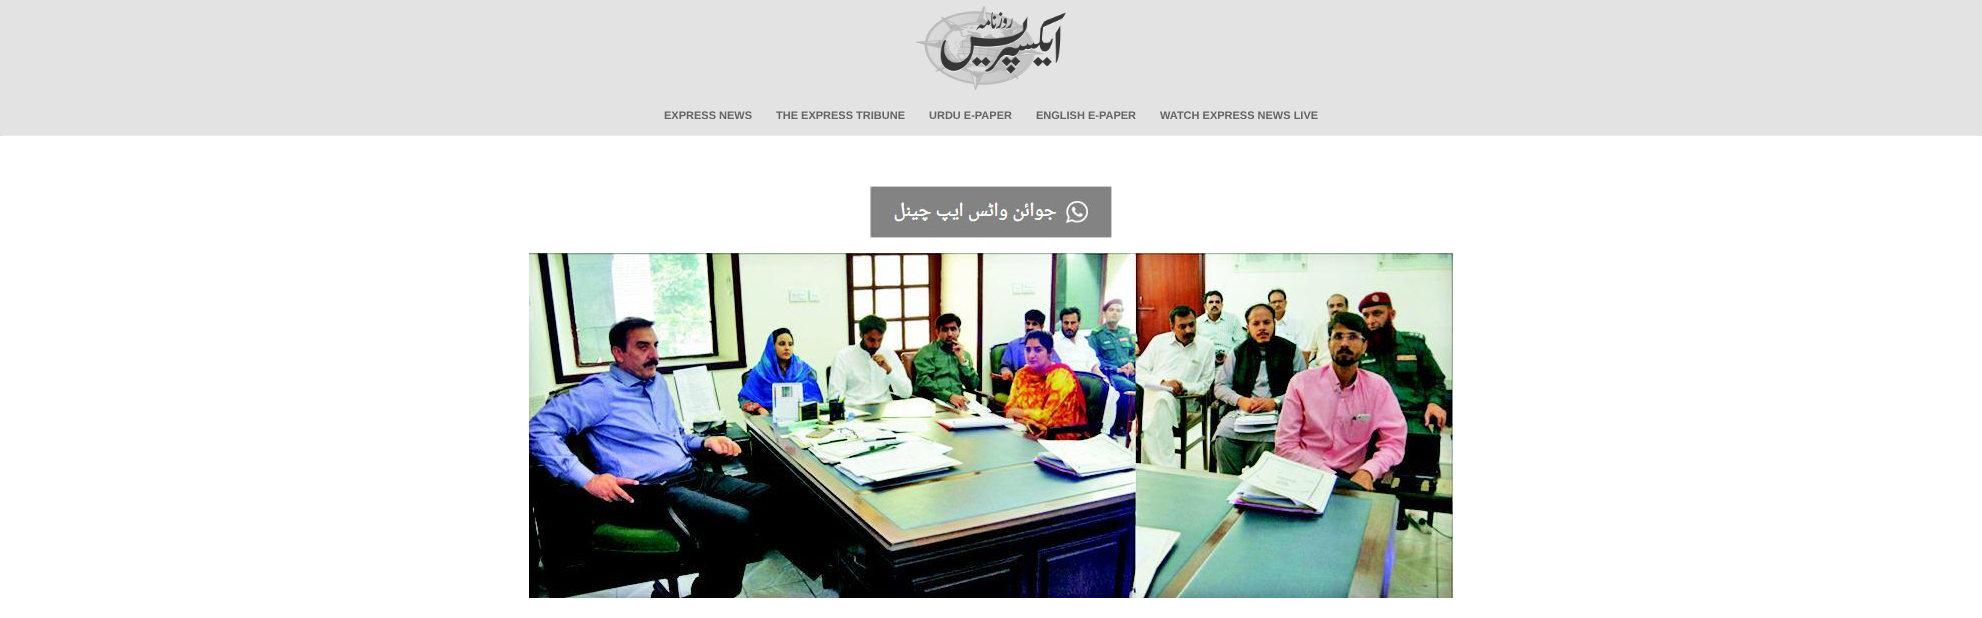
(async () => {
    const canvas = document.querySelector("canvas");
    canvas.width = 1982;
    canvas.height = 618;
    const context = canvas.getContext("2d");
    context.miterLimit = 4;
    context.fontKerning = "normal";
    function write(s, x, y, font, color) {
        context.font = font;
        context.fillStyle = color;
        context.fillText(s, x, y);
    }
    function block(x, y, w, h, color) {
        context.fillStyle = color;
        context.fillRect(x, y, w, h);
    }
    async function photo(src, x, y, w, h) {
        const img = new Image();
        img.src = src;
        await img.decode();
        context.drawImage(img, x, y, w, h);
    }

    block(0, 0, 1982, 618, "rgb(255, 255, 255)");
    block(0, 0, 1982, 136, "rgb(227, 227, 227)");
    context.beginPath();
    context.moveTo(1980.5, 134.5);
    context.lineTo(1978, 135.5);
    context.lineTo(4, 135.5);
    context.lineTo(1.5, 134.5);
    context.strokeStyle = "rgb(236, 236, 236)";
    context.stroke();
    await photo("media/1.png", 916, 6, 150, 84);
    write("EXPRESS NEWS", 664, 119, "bold 11px Liberation Sans", "rgb(102, 102, 102)");
    write("THE EXPRESS TRIBUNE", 776, 119, "bold 11px Liberation Sans", "rgb(102, 102, 102)");
    write("URDU E-PAPER", 929, 119, "bold 11px Liberation Sans", "rgb(102, 102, 102)");
    write("ENGLISH E-PAPER", 1036, 119, "bold 11px Liberation Sans", "rgb(102, 102, 102)");
    write("WATCH EXPRESS NEWS LIVE", 1160, 119, "bold 11px Liberation Sans", "rgb(102, 102, 102)");
    await photo("media/2.png", 870, 186, 242, 52);
    await photo("media/3.png", 529, 253, 924, 345);
})();
